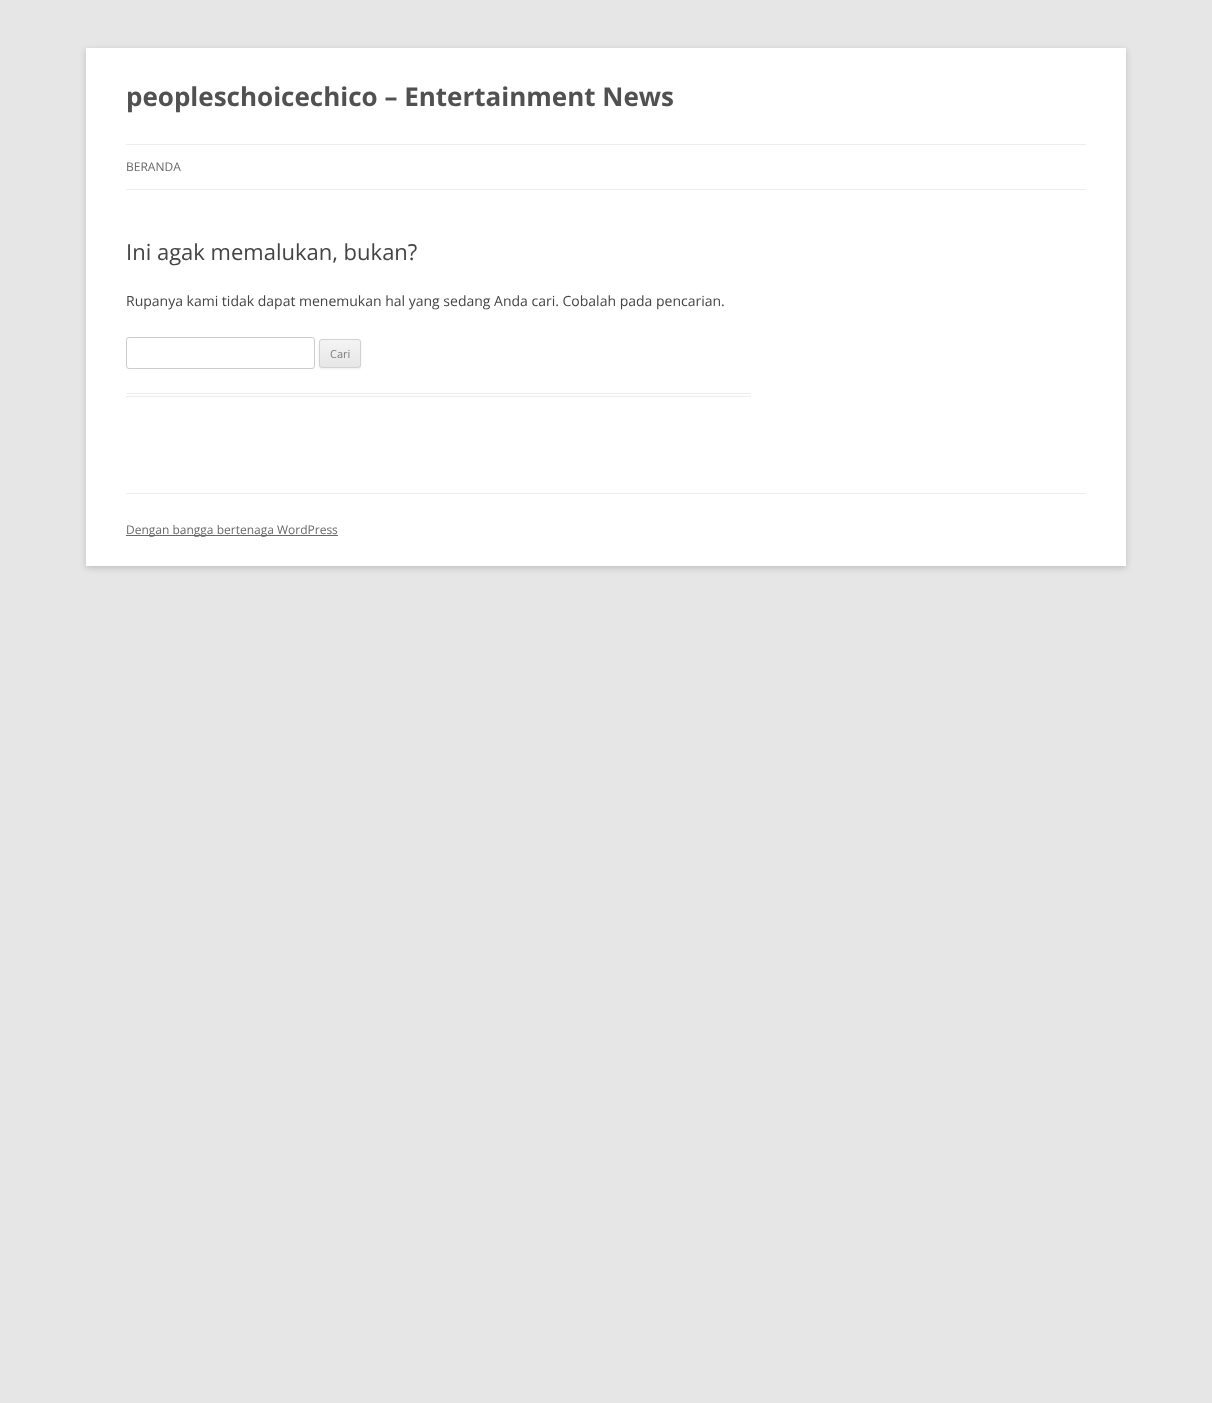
(async () => {
    const canvas = document.querySelector("canvas");
    canvas.width = 1212;
    canvas.height = 1403;
    const context = canvas.getContext("2d");
    context.miterLimit = 4;
    context.fontKerning = "normal";
    function write(s, x, y, font, color) {
        context.font = font;
        context.fillStyle = color;
        context.fillText(s, x, y);
    }
    function block(x, y, w, h, color) {
        context.fillStyle = color;
        context.fillRect(x, y, w, h);
    }
    let gradient;

    block(0, 0, 1212, 1403, "rgb(230, 230, 230)");
    context.fillStyle = "rgba(100, 100, 100, 0.3)";
    context.filter = "blur(3px)";
    context.beginPath();
    context.rect(86, 50, 1040, 518);
    context.fill();
    context.filter = "none";
    block(86, 48, 1040, 518, "rgb(255, 255, 255)");
    write("peopleschoicechico – Entertainment News", 126, 106, "bold 26px Open Sans", "rgb(81, 81, 81)");
    block(126, 144, 960, 1, "rgb(237, 237, 237)");
    block(126, 189, 960, 1, "rgb(237, 237, 237)");
    write("BERANDA", 126, 171, "12px Open Sans", "rgb(104, 104, 104)");
    block(126, 393, 625, 1, "rgb(237, 237, 237)");
    block(126, 396, 625, 1, "rgb(237, 237, 237)");
    write("Ini agak memalukan, bukan?", 126, 260, "22px Open Sans", "rgb(68, 68, 68)");
    write("Rupanya kami tidak dapat menemukan hal yang sedang Anda cari. Cobalah pada pencarian.", 126, 306, "14px Open Sans", "rgb(68, 68, 68)");
    context.beginPath();
    context.roundRect(126.5, 337.5, 188, 31, 2.5);
    context.strokeStyle = "rgb(204, 204, 204)";
    context.stroke();
    context.fillStyle = "rgba(64, 64, 64, 0.1)";
    context.filter = "blur(1px)";
    context.beginPath();
    context.roundRect(319, 340, 42, 29, 3);
    context.fill();
    context.filter = "none";
    context.save();
    context.beginPath();
    context.roundRect(319, 339, 42, 29, 3);
    context.clip();
    gradient = context.createLinearGradient(340, 340, 340, 367);
    gradient.addColorStop(0, "rgb(244, 244, 244)");
    gradient.addColorStop(1, "rgb(230, 230, 230)");
    context.fillStyle = gradient;
    context.fillRect(319, 340, 42, 27);
    context.restore();
    context.beginPath();
    context.roundRect(319.5, 339.5, 41, 28, 2.5);
    context.strokeStyle = "rgb(210, 210, 210)";
    context.stroke();
    write("Cari", 330, 358, "11px Open Sans", "rgb(124, 124, 124)");
    block(126, 493, 960, 1, "rgb(237, 237, 237)");
    block(126, 535, 212, 1, "rgb(104, 104, 104)");
    write("Dengan bangga bertenaga WordPress", 126, 534, "12px Open Sans", "rgb(104, 104, 104)");
})();
